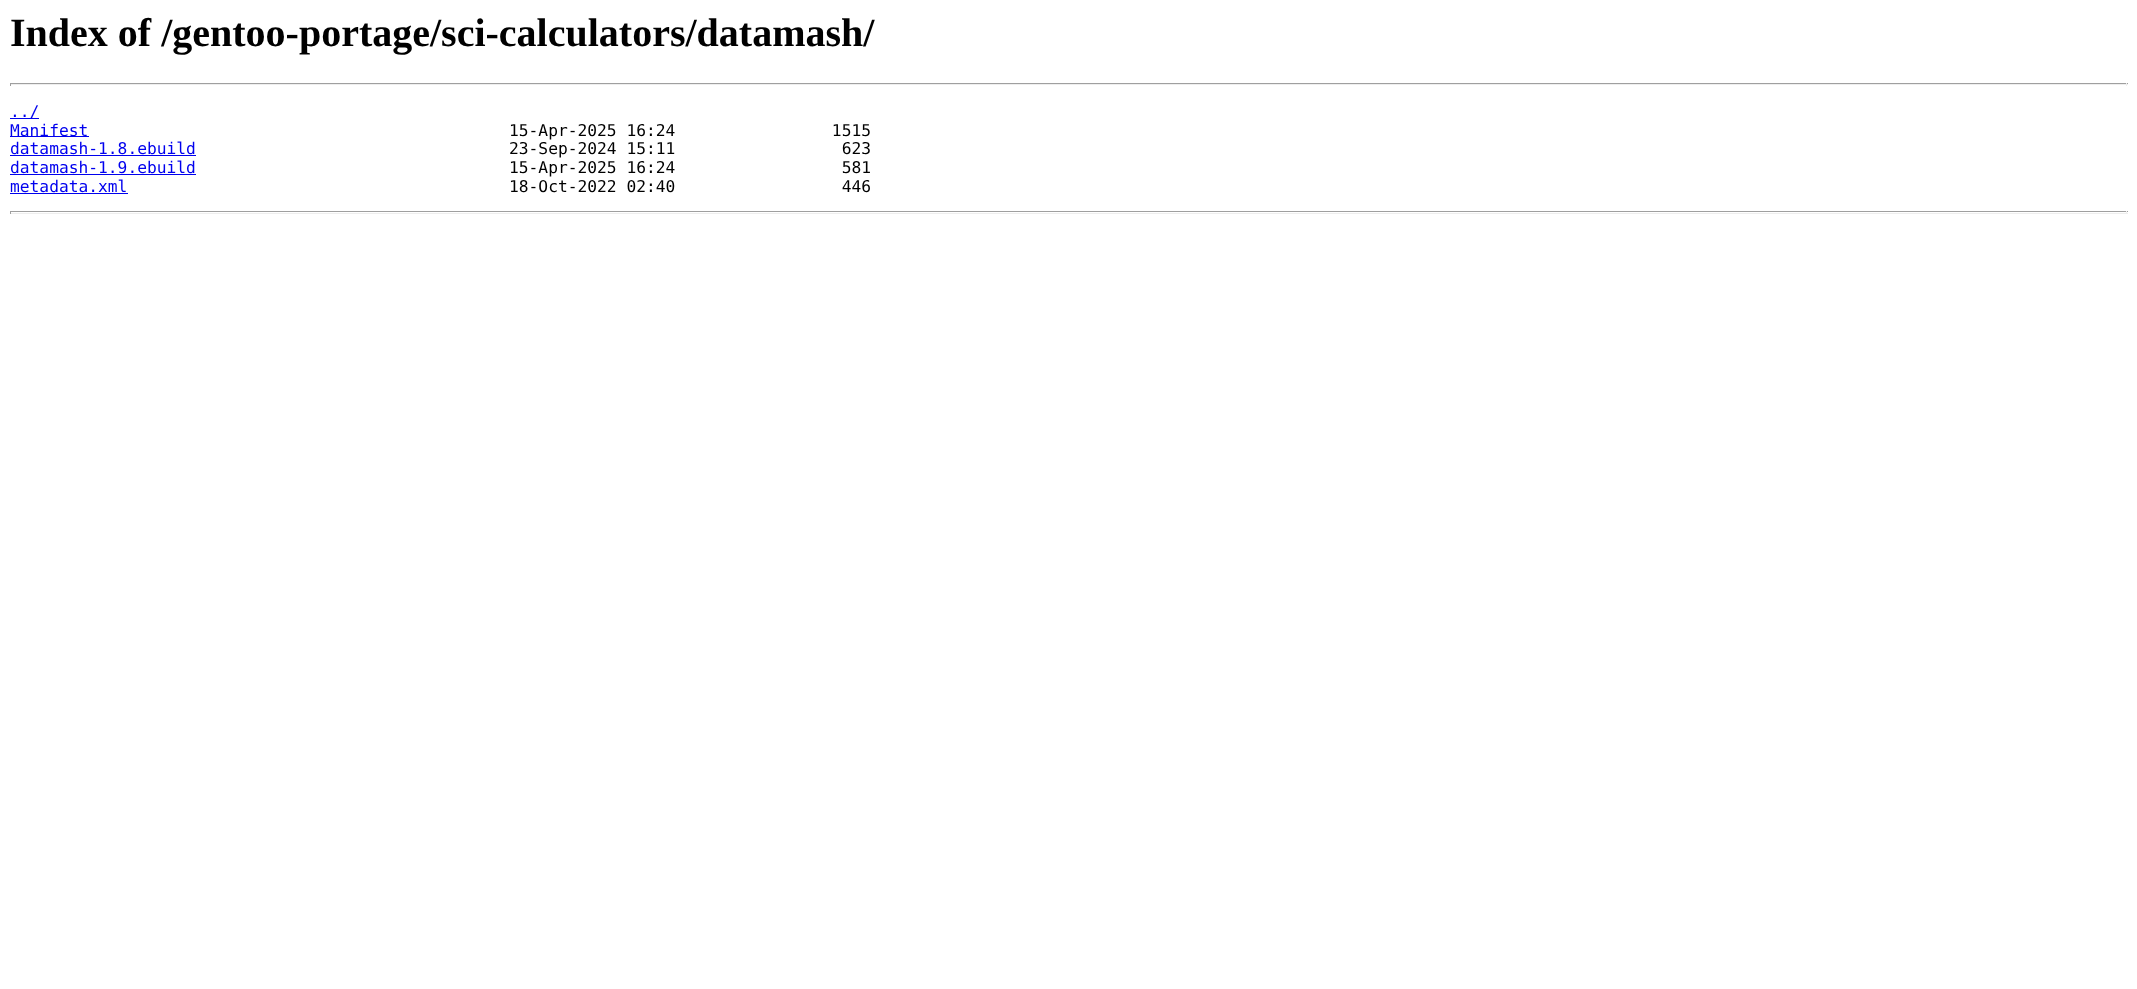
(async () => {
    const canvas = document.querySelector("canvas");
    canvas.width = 2137;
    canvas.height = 989;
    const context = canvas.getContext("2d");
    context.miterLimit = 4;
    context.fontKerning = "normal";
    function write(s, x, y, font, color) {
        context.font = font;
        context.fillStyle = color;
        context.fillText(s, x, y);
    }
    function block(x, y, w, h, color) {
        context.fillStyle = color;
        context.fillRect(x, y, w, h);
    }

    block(0, 0, 2137, 989, "rgb(255, 255, 255)");
    write("Index of /gentoo-portage/sci-calculators/datamash/", 10, 46, "bold 40px Liberation Serif", "rgb(0, 0, 0)");
    block(10, 83, 2118, 1, "rgb(159, 159, 159)");
    block(2126, 83, 1, 3, "rgb(238, 238, 238)");
    block(10, 84, 2118, 1, "rgb(238, 238, 238)");
    block(10, 83, 1, 3, "rgb(159, 159, 159)");
    block(10, 118, 29, 1, "rgb(0, 0, 238)");
    write("../", 10, 117, "16.25px DejaVu Sans Mono", "rgb(0, 0, 238)");
    block(10, 136, 79, 1, "rgb(0, 0, 238)");
    write("Manifest", 10, 136, "16.25px DejaVu Sans Mono", "rgb(0, 0, 238)");
    write("15-Apr-2025 16:24                1515", 509, 136, "16.25px DejaVu Sans Mono", "rgb(0, 0, 0)");
    write("datamash-1.8.ebuild", 10, 154, "16.25px DejaVu Sans Mono", "rgb(0, 0, 238)");
    block(10, 155, 186, 1, "rgb(0, 0, 238)");
    write("23-Sep-2024 15:11                 623", 509, 154, "16.25px DejaVu Sans Mono", "rgb(0, 0, 0)");
    write("datamash-1.9.ebuild", 10, 173, "16.25px DejaVu Sans Mono", "rgb(0, 0, 238)");
    block(10, 174, 186, 1, "rgb(0, 0, 238)");
    write("15-Apr-2025 16:24                 581", 509, 173, "16.25px DejaVu Sans Mono", "rgb(0, 0, 0)");
    write("metadata.xml", 10, 192, "16.25px DejaVu Sans Mono", "rgb(0, 0, 238)");
    block(10, 193, 118, 1, "rgb(0, 0, 238)");
    write("18-Oct-2022 02:40                 446", 509, 192, "16.25px DejaVu Sans Mono", "rgb(0, 0, 0)");
    block(10, 211, 2118, 1, "rgb(159, 159, 159)");
    block(2126, 211, 1, 3, "rgb(238, 238, 238)");
    block(10, 213, 2118, 1, "rgb(238, 238, 238)");
    block(10, 211, 1, 3, "rgb(159, 159, 159)");
})();
